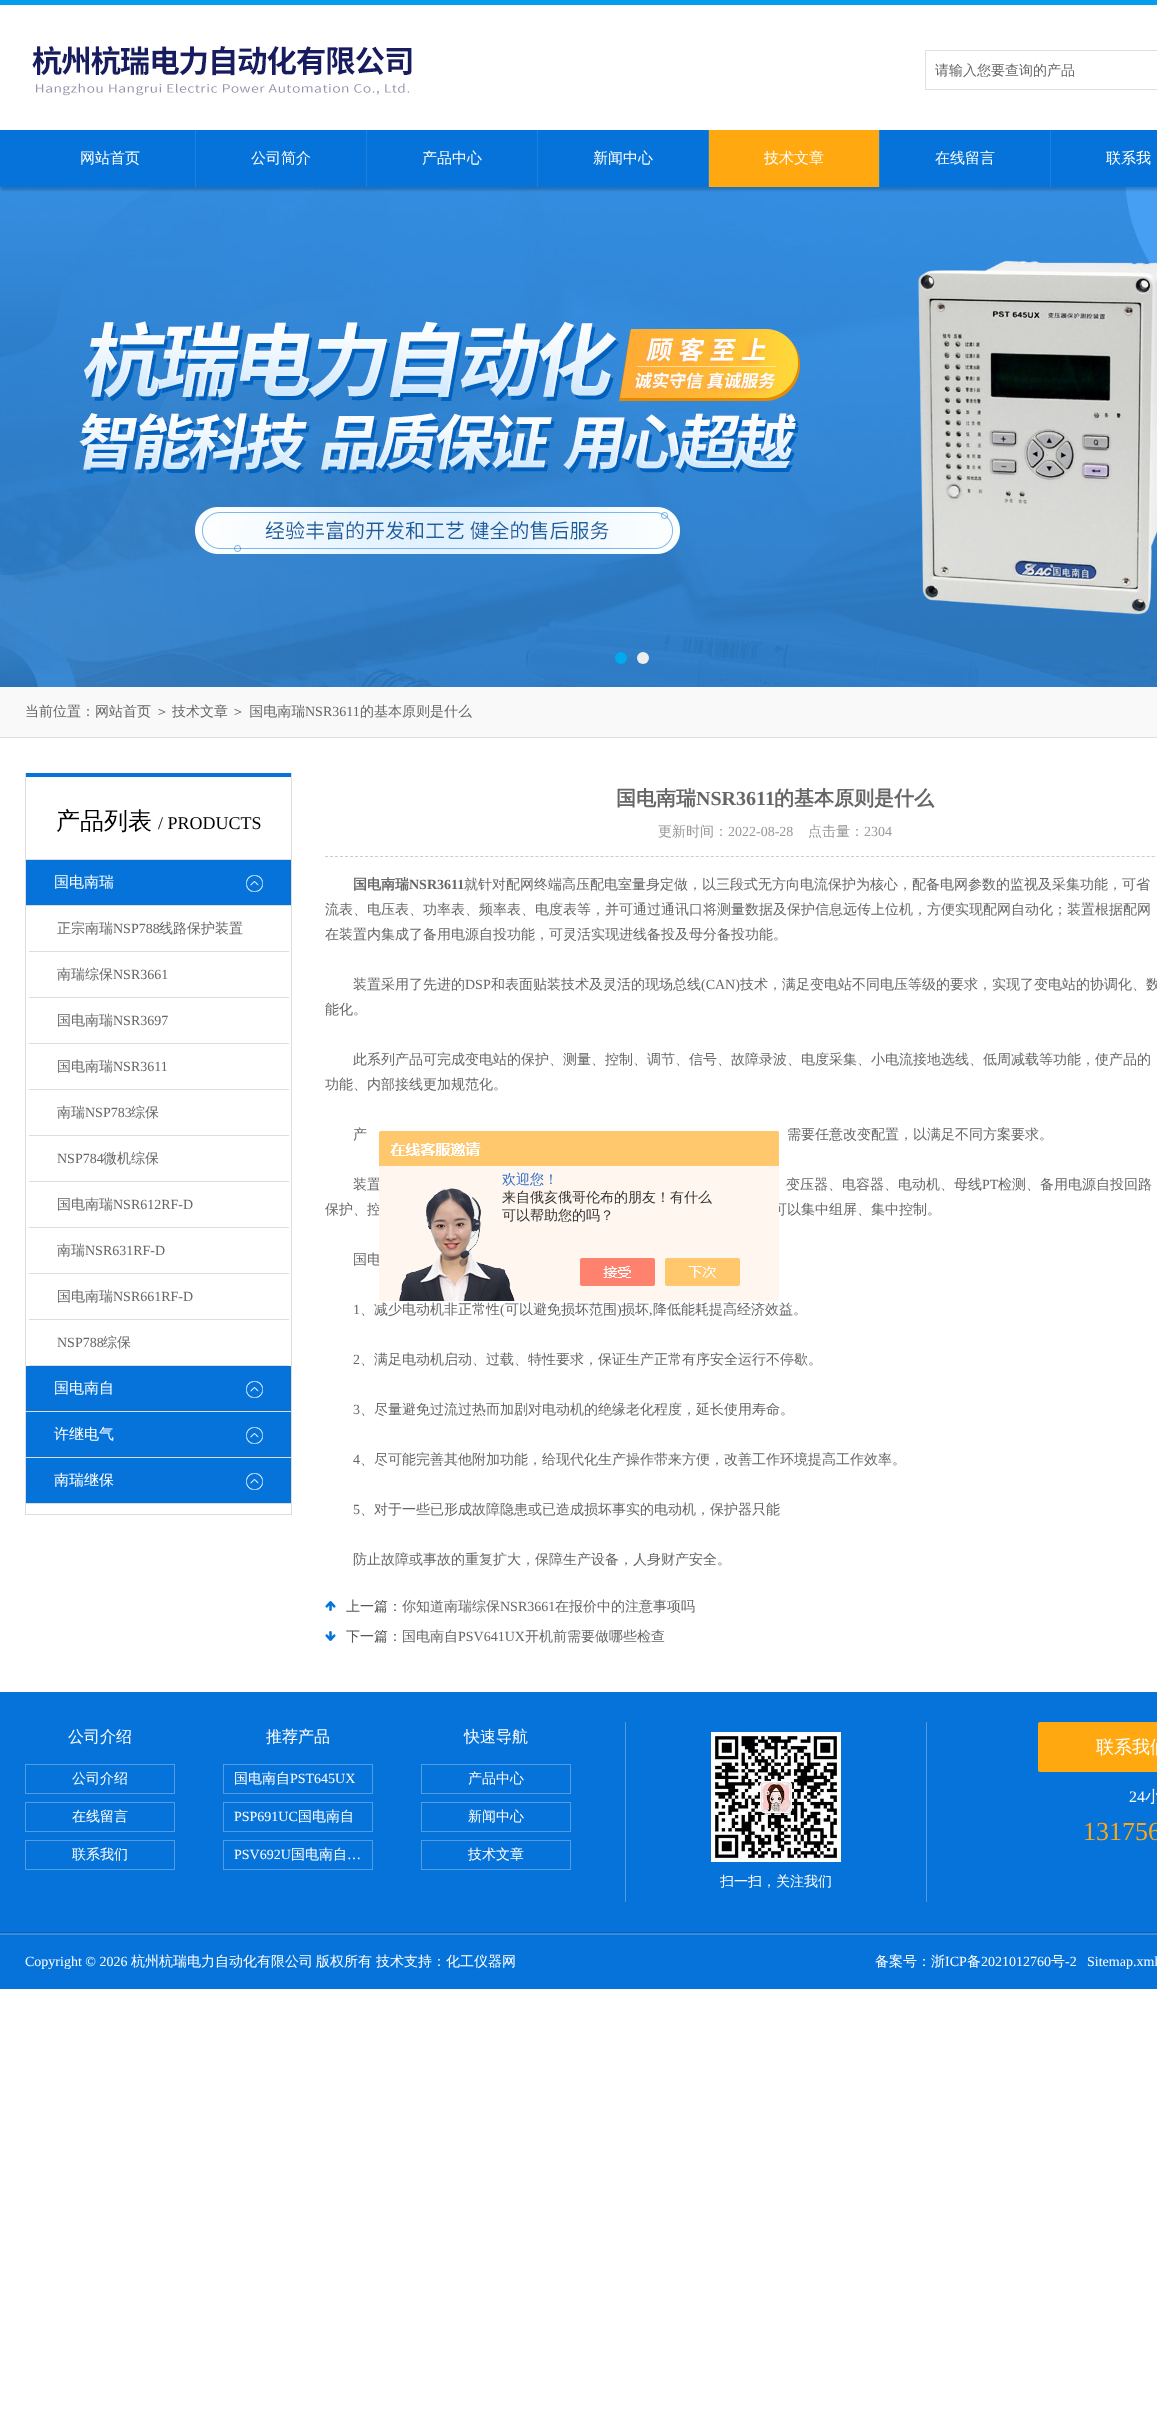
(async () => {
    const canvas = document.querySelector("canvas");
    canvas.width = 1157;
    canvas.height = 2431;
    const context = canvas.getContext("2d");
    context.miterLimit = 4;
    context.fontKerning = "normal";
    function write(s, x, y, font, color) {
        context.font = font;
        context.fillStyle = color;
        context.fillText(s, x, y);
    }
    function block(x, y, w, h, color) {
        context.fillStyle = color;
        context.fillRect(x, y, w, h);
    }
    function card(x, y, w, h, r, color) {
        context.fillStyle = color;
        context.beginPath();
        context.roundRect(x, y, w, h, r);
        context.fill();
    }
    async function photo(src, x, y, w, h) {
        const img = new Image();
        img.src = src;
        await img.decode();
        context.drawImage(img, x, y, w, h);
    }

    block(0, 0, 1157, 2431, "rgb(255, 255, 255)");
    block(0, 0, 1157, 5, "rgb(3, 158, 238)");
    await photo("media/1.png", 32, 45, 381, 51);
    block(925, 50, 232, 1, "rgb(223, 223, 223)");
    block(925, 89, 232, 1, "rgb(223, 223, 223)");
    block(925, 50, 1, 40, "rgb(223, 223, 223)");
    write("请输入您要查询的产品", 935, 75, "500 14px WenQuanYi Zen Hei", "rgb(102, 102, 102)");
    await photo("media/2.png", 0, 187, 1157, 500);
    context.fillStyle = "rgba(0, 0, 0, 0.2)";
    context.filter = "blur(1px)";
    context.beginPath();
    context.rect(1, 135, 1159, 55);
    context.fill();
    context.filter = "none";
    block(0, 130, 1157, 57, "rgb(5, 115, 218)");
    block(195, 130, 1, 57, "rgb(30, 129, 222)");
    write("网站首页", 80, 163, "500 15px WenQuanYi Zen Hei", "rgb(255, 255, 255)");
    block(366, 130, 1, 57, "rgb(30, 129, 222)");
    write("公司简介", 251, 163, "500 15px WenQuanYi Zen Hei", "rgb(255, 255, 255)");
    block(537, 130, 1, 57, "rgb(30, 129, 222)");
    write("产品中心", 422, 163, "500 15px WenQuanYi Zen Hei", "rgb(255, 255, 255)");
    block(708, 130, 1, 57, "rgb(30, 129, 222)");
    write("新闻中心", 593, 163, "500 15px WenQuanYi Zen Hei", "rgb(255, 255, 255)");
    block(709, 130, 170, 57, "rgb(255, 168, 16)");
    block(879, 130, 1, 57, "rgb(30, 129, 222)");
    write("技术文章", 764, 163, "500 15px WenQuanYi Zen Hei", "rgb(255, 255, 255)");
    block(1050, 130, 1, 57, "rgb(30, 129, 222)");
    write("在线留言", 935, 163, "500 15px WenQuanYi Zen Hei", "rgb(255, 255, 255)");
    write("联系我", 1106, 163, "500 15px WenQuanYi Zen Hei", "rgb(255, 255, 255)");
    context.fillStyle = "rgb(0, 170, 239)";
    context.beginPath();
    context.arc(621, 658, 6, 0, Math.PI * 2);
    context.fill();
    context.fillStyle = "rgb(238, 238, 238)";
    context.beginPath();
    context.arc(643, 658, 6, 0, Math.PI * 2);
    context.fill();
    block(0, 687, 1157, 50, "rgb(249, 249, 249)");
    block(0, 737, 1157, 1, "rgb(223, 223, 223)");
    write("当前位置：网站首页", 25, 716, "500 14px WenQuanYi Zen Hei", "rgb(102, 102, 102)");
    write("＞", 155, 716, "500 14px WenQuanYi Zen Hei", "rgb(102, 102, 102)");
    write("技术文章", 172, 716, "500 14px WenQuanYi Zen Hei", "rgb(102, 102, 102)");
    write("＞ 国电南瑞", 231, 716, "500 14px WenQuanYi Zen Hei", "rgb(102, 102, 102)");
    write("NSR3611", 305, 716, "14px Liberation Serif", "rgb(102, 102, 102)");
    write("的基本原则是什么", 360, 716, "500 14px WenQuanYi Zen Hei", "rgb(102, 102, 102)");
    block(291, 773, 1, 742, "rgb(221, 221, 221)");
    block(25, 1514, 267, 1, "rgb(221, 221, 221)");
    block(25, 773, 1, 742, "rgb(221, 221, 221)");
    block(26, 773, 265, 4, "rgb(5, 115, 218)");
    block(26, 859, 265, 1, "rgb(221, 221, 221)");
    write("产品列表", 56, 829, "500 24px WenQuanYi Zen Hei", "rgb(0, 0, 0)");
    write("/ PRODUCTS", 158, 829, "18px Liberation Serif", "rgb(0, 0, 0)");
    block(26, 860, 265, 45, "rgb(5, 115, 218)");
    await photo("media/3.png", 246, 875, 17, 17);
    block(26, 905, 265, 1, "rgb(221, 221, 221)");
    write("国电南瑞", 54, 887, "500 15px WenQuanYi Zen Hei", "rgb(255, 255, 255)");
    block(29, 951, 260, 1, "rgb(221, 221, 221)");
    write("正宗南瑞", 57, 933, "500 14px WenQuanYi Zen Hei", "rgb(102, 102, 102)");
    write("NSP788", 113, 933, "14px Liberation Serif", "rgb(102, 102, 102)");
    write("线路保护装置", 159, 933, "500 14px WenQuanYi Zen Hei", "rgb(102, 102, 102)");
    block(29, 997, 260, 1, "rgb(221, 221, 221)");
    write("南瑞综保", 57, 979, "500 14px WenQuanYi Zen Hei", "rgb(102, 102, 102)");
    write("NSR3661", 113, 979, "14px Liberation Serif", "rgb(102, 102, 102)");
    block(29, 1043, 260, 1, "rgb(221, 221, 221)");
    write("国电南瑞", 57, 1025, "500 14px WenQuanYi Zen Hei", "rgb(102, 102, 102)");
    write("NSR3697", 113, 1025, "14px Liberation Serif", "rgb(102, 102, 102)");
    block(29, 1089, 260, 1, "rgb(221, 221, 221)");
    write("国电南瑞", 57, 1071, "500 14px WenQuanYi Zen Hei", "rgb(102, 102, 102)");
    write("NSR3611", 113, 1071, "14px Liberation Serif", "rgb(102, 102, 102)");
    block(29, 1135, 260, 1, "rgb(221, 221, 221)");
    write("南瑞", 57, 1117, "500 14px WenQuanYi Zen Hei", "rgb(102, 102, 102)");
    write("NSP783", 85, 1117, "14px Liberation Serif", "rgb(102, 102, 102)");
    write("综保", 131, 1117, "500 14px WenQuanYi Zen Hei", "rgb(102, 102, 102)");
    block(29, 1181, 260, 1, "rgb(221, 221, 221)");
    write("NSP784", 57, 1163, "14px Liberation Serif", "rgb(102, 102, 102)");
    write("微机综保", 103, 1163, "500 14px WenQuanYi Zen Hei", "rgb(102, 102, 102)");
    block(29, 1227, 260, 1, "rgb(221, 221, 221)");
    write("国电南瑞", 57, 1209, "500 14px WenQuanYi Zen Hei", "rgb(102, 102, 102)");
    write("NSR612RF-D", 113, 1209, "14px Liberation Serif", "rgb(102, 102, 102)");
    block(29, 1273, 260, 1, "rgb(221, 221, 221)");
    write("南瑞", 57, 1255, "500 14px WenQuanYi Zen Hei", "rgb(102, 102, 102)");
    write("NSR631RF-D", 85, 1255, "14px Liberation Serif", "rgb(102, 102, 102)");
    block(29, 1319, 260, 1, "rgb(221, 221, 221)");
    write("国电南瑞", 57, 1301, "500 14px WenQuanYi Zen Hei", "rgb(102, 102, 102)");
    write("NSR661RF-D", 113, 1301, "14px Liberation Serif", "rgb(102, 102, 102)");
    block(29, 1365, 260, 1, "rgb(221, 221, 221)");
    write("NSP788", 57, 1347, "14px Liberation Serif", "rgb(102, 102, 102)");
    write("综保", 103, 1347, "500 14px WenQuanYi Zen Hei", "rgb(102, 102, 102)");
    block(26, 1366, 265, 45, "rgb(5, 115, 218)");
    await photo("media/3.png", 246, 1381, 17, 17);
    block(26, 1411, 265, 1, "rgb(221, 221, 221)");
    write("国电南自", 54, 1393, "500 15px WenQuanYi Zen Hei", "rgb(255, 255, 255)");
    block(26, 1412, 265, 45, "rgb(5, 115, 218)");
    await photo("media/3.png", 246, 1427, 17, 17);
    block(26, 1457, 265, 1, "rgb(221, 221, 221)");
    write("许继电气", 54, 1439, "500 15px WenQuanYi Zen Hei", "rgb(255, 255, 255)");
    block(26, 1458, 265, 45, "rgb(5, 115, 218)");
    await photo("media/3.png", 246, 1473, 17, 17);
    block(26, 1503, 265, 1, "rgb(221, 221, 221)");
    write("南瑞继保", 54, 1485, "500 15px WenQuanYi Zen Hei", "rgb(255, 255, 255)");
    write("国电南瑞", 616, 805, "bold 20px WenQuanYi Zen Hei", "rgb(102, 102, 102)");
    write("NSR3611", 696, 805, "bold 20px Liberation Serif", "rgb(102, 102, 102)");
    write("的基本原则是什么", 774, 805, "bold 20px WenQuanYi Zen Hei", "rgb(102, 102, 102)");
    context.beginPath();
    context.moveTo(325, 856.5);
    context.lineTo(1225, 856.5);
    context.strokeStyle = "rgb(204, 204, 204)";
    context.setLineDash([3, 2.01]);
    context.stroke();
    write("更新时间：", 658, 836, "500 14px WenQuanYi Zen Hei", "rgb(153, 153, 153)");
    write("2022-08-28", 728, 836, "14px Liberation Serif", "rgb(153, 153, 153)");
    write("点击量：", 808, 836, "500 14px WenQuanYi Zen Hei", "rgb(153, 153, 153)");
    write("2304", 864, 836, "14px Liberation Serif", "rgb(153, 153, 153)");
    write("国电南瑞", 353, 889, "bold 14px WenQuanYi Zen Hei", "rgb(102, 102, 102)");
    write("NSR3611", 409, 889, "bold 14px Liberation Serif", "rgb(102, 102, 102)");
    write("就针对配网终端高压配电室量身定做，以三段式无方向电流保护为核心，配备电网参数的监视及采集功能，可省", 464, 889, "500 14px WenQuanYi Zen Hei", "rgb(102, 102, 102)");
    write("流表、电压表、功率表、频率表、电度表等，并可通过通讯口将测量数据及保护信息远传上位机，方便实现配网自动化；装置根据配网", 325, 914, "500 14px WenQuanYi Zen Hei", "rgb(102, 102, 102)");
    write("在装置内集成了备用电源自投功能，可灵活实现进线备投及母分备投功能。", 325, 939, "500 14px WenQuanYi Zen Hei", "rgb(102, 102, 102)");
    write("装置采用了先进的", 353, 989, "500 14px WenQuanYi Zen Hei", "rgb(102, 102, 102)");
    write("DSP", 465, 989, "14px Liberation Serif", "rgb(102, 102, 102)");
    write("和表面贴装技术及灵活的现场总线", 491, 989, "500 14px WenQuanYi Zen Hei", "rgb(102, 102, 102)");
    write("(CAN)", 701, 989, "14px Liberation Serif", "rgb(102, 102, 102)");
    write("技术，满足变电站不同电压等级的要求，实现了变电站的协调化、数", 740, 989, "500 14px WenQuanYi Zen Hei", "rgb(102, 102, 102)");
    write("能化。", 325, 1014, "500 14px WenQuanYi Zen Hei", "rgb(102, 102, 102)");
    write("此系列产品可完成变电站的保护、测量、控制、调节、信号、故障录波、电度采集、小电流接地选线、低周减载等功能，使产品的", 353, 1064, "500 14px WenQuanYi Zen Hei", "rgb(102, 102, 102)");
    write("功能、内部接线更加规范化。", 325, 1089, "500 14px WenQuanYi Zen Hei", "rgb(102, 102, 102)");
    write("产", 353, 1139, "500 14px WenQuanYi Zen Hei", "rgb(102, 102, 102)");
    write("需要任意改变配置，以满足不同方案要求。", 787, 1139, "500 14px WenQuanYi Zen Hei", "rgb(102, 102, 102)");
    write("装置", 353, 1189, "500 14px WenQuanYi Zen Hei", "rgb(102, 102, 102)");
    write("变压器、电容器、电动机、母线", 786, 1189, "500 14px WenQuanYi Zen Hei", "rgb(102, 102, 102)");
    write("PT", 982, 1189, "14px Liberation Serif", "rgb(102, 102, 102)");
    write("检测、备用电源自投回路", 998, 1189, "500 14px WenQuanYi Zen Hei", "rgb(102, 102, 102)");
    write("保护、控", 325, 1214, "500 14px WenQuanYi Zen Hei", "rgb(102, 102, 102)");
    write("可以集中组屏、集中控制。", 773, 1214, "500 14px WenQuanYi Zen Hei", "rgb(102, 102, 102)");
    write("国电", 353, 1264, "500 14px WenQuanYi Zen Hei", "rgb(102, 102, 102)");
    write("1", 353, 1314, "14px Liberation Serif", "rgb(102, 102, 102)");
    write("、减少电动机非正常性", 360, 1314, "500 14px WenQuanYi Zen Hei", "rgb(102, 102, 102)");
    write("(", 500, 1314, "14px Liberation Serif", "rgb(102, 102, 102)");
    write("可以避免损坏范围", 505, 1314, "500 14px WenQuanYi Zen Hei", "rgb(102, 102, 102)");
    write(")", 617, 1314, "14px Liberation Serif", "rgb(102, 102, 102)");
    write("损坏", 621, 1314, "500 14px WenQuanYi Zen Hei", "rgb(102, 102, 102)");
    write(",", 649, 1314, "14px Liberation Serif", "rgb(102, 102, 102)");
    write("降低能耗提高经济效益。", 653, 1314, "500 14px WenQuanYi Zen Hei", "rgb(102, 102, 102)");
    write("2", 353, 1364, "14px Liberation Serif", "rgb(102, 102, 102)");
    write("、满足电动机启动、过载、特性要求，保证生产正常有序安全运行不停歇。", 360, 1364, "500 14px WenQuanYi Zen Hei", "rgb(102, 102, 102)");
    write("3", 353, 1414, "14px Liberation Serif", "rgb(102, 102, 102)");
    write("、尽量避免过流过热而加剧对电动机的绝缘老化程度，延长使用寿命。", 360, 1414, "500 14px WenQuanYi Zen Hei", "rgb(102, 102, 102)");
    write("4", 353, 1464, "14px Liberation Serif", "rgb(102, 102, 102)");
    write("、尽可能完善其他附加功能，给现代化生产操作带来方便，改善工作环境提高工作效率。", 360, 1464, "500 14px WenQuanYi Zen Hei", "rgb(102, 102, 102)");
    write("5", 353, 1514, "14px Liberation Serif", "rgb(102, 102, 102)");
    write("、对于一些已形成故障隐患或已造成损坏事实的电动机，保护器只能", 360, 1514, "500 14px WenQuanYi Zen Hei", "rgb(102, 102, 102)");
    write("防止故障或事故的重复扩大，保障生产设备，人身财产安全。", 353, 1564, "500 14px WenQuanYi Zen Hei", "rgb(102, 102, 102)");
    block(325, 1601, 11, 10, "rgb(5, 115, 218)");
    await photo("media/4.png", 325, 1601, 11, 10);
    write("上一篇：", 346, 1611, "500 14px WenQuanYi Zen Hei", "rgb(85, 85, 85)");
    write("你知道南瑞综保", 402, 1611, "500 14px WenQuanYi Zen Hei", "rgb(102, 102, 102)");
    write("NSR3661", 500, 1611, "14px Liberation Serif", "rgb(102, 102, 102)");
    write("在报价中的注意事项吗", 555, 1611, "500 14px WenQuanYi Zen Hei", "rgb(102, 102, 102)");
    block(325, 1631, 11, 10, "rgb(5, 115, 218)");
    await photo("media/5.png", 325, 1631, 11, 10);
    write("下一篇：", 346, 1641, "500 14px WenQuanYi Zen Hei", "rgb(85, 85, 85)");
    write("国电南自", 402, 1641, "500 14px WenQuanYi Zen Hei", "rgb(102, 102, 102)");
    write("PSV641UX", 458, 1641, "14px Liberation Serif", "rgb(102, 102, 102)");
    write("开机前需要做哪些检查", 525, 1641, "500 14px WenQuanYi Zen Hei", "rgb(102, 102, 102)");
    await photo("media/6.png", 379, 1131, 400, 170);
    write("欢迎您！", 502, 1184, "500 14px WenQuanYi Zen Hei", "rgb(46, 110, 198)");
    write("来自俄亥俄哥伦布的朋友！有什么", 502, 1202, "500 14px WenQuanYi Zen Hei", "rgb(51, 51, 51)");
    write("可以帮助您的吗？", 502, 1220, "500 14px WenQuanYi Zen Hei", "rgb(51, 51, 51)");
    block(0, 1692, 1157, 240, "rgb(5, 115, 218)");
    block(0, 1932, 1157, 1, "rgb(15, 92, 165)");
    write("公司介绍", 68, 1742, "500 16px WenQuanYi Zen Hei", "rgb(255, 255, 255)");
    context.strokeStyle = "rgb(80, 157, 229)";
    context.setLineDash([]);
    context.strokeRect(25.5, 1764.5, 149, 29);
    write("公司介绍", 72, 1783, "500 14px WenQuanYi Zen Hei", "rgb(255, 255, 255)");
    context.strokeRect(25.5, 1802.5, 149, 29);
    write("在线留言", 72, 1821, "500 14px WenQuanYi Zen Hei", "rgb(255, 255, 255)");
    context.strokeRect(25.5, 1840.5, 149, 29);
    write("联系我们", 72, 1859, "500 14px WenQuanYi Zen Hei", "rgb(255, 255, 255)");
    write("推荐产品", 266, 1742, "500 16px WenQuanYi Zen Hei", "rgb(255, 255, 255)");
    context.strokeRect(223.5, 1764.5, 149, 29);
    write("国电南自", 234, 1783, "500 14px WenQuanYi Zen Hei", "rgb(255, 255, 255)");
    write("PST645UX", 290, 1783, "14px Liberation Serif", "rgb(255, 255, 255)");
    context.strokeRect(223.5, 1802.5, 149, 29);
    write("PSP691UC", 234, 1821, "14px Liberation Serif", "rgb(255, 255, 255)");
    write("国电南自", 298, 1821, "500 14px WenQuanYi Zen Hei", "rgb(255, 255, 255)");
    context.strokeRect(223.5, 1840.5, 149, 29);
    write("PSV692U", 234, 1859, "14px Liberation Serif", "rgb(255, 255, 255)");
    write("国电南自", 291, 1859, "500 14px WenQuanYi Zen Hei", "rgb(255, 255, 255)");
    write("…", 347, 1859, "14px Liberation Serif", "rgb(255, 255, 255)");
    write("快速导航", 464, 1742, "500 16px WenQuanYi Zen Hei", "rgb(255, 255, 255)");
    context.strokeRect(421.5, 1764.5, 149, 29);
    write("产品中心", 468, 1783, "500 14px WenQuanYi Zen Hei", "rgb(255, 255, 255)");
    context.strokeRect(421.5, 1802.5, 149, 29);
    write("新闻中心", 468, 1821, "500 14px WenQuanYi Zen Hei", "rgb(255, 255, 255)");
    context.strokeRect(421.5, 1840.5, 149, 29);
    write("技术文章", 468, 1859, "500 14px WenQuanYi Zen Hei", "rgb(255, 255, 255)");
    card(1038, 1722, 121, 50, 2, "rgb(255, 168, 16)");
    write("联系我们", 1096, 1753, "500 18px WenQuanYi Zen Hei", "rgb(255, 255, 255)");
    write("24", 1129, 1802, "16px Liberation Serif", "rgb(255, 255, 255)");
    write("小", 1145, 1802, "500 16px WenQuanYi Zen Hei", "rgb(255, 255, 255)");
    write("131756", 1083, 1840, "26px Liberation Serif", "rgb(255, 168, 16)");
    block(926, 1722, 1, 180, "rgb(80, 157, 229)");
    block(625, 1722, 1, 180, "rgb(80, 157, 229)");
    await photo("media/7.png", 711, 1732, 130, 130);
    write("扫一扫，关注我们", 720, 1886, "500 14px WenQuanYi Zen Hei", "rgb(255, 255, 255)");
    block(0, 1935, 1157, 54, "rgb(5, 115, 218)");
    block(0, 1933, 1157, 2, "rgb(50, 141, 226)");
    write("Copyright © 2026", 25, 1966, "14px Liberation Serif", "rgb(255, 255, 255)");
    write("杭州杭瑞电力自动化有限公司", 131, 1966, "500 14px WenQuanYi Zen Hei", "rgb(255, 255, 255)");
    write("版权所有", 316, 1966, "500 14px WenQuanYi Zen Hei", "rgb(255, 255, 255)");
    write("技术支持：化工仪器网", 376, 1966, "500 14px WenQuanYi Zen Hei", "rgb(255, 255, 255)");
    write("备案号：浙", 875, 1966, "500 14px WenQuanYi Zen Hei", "rgb(255, 255, 255)");
    write("ICP", 945, 1966, "14px Liberation Serif", "rgb(255, 255, 255)");
    write("备", 967, 1966, "500 14px WenQuanYi Zen Hei", "rgb(255, 255, 255)");
    write("2021012760", 981, 1966, "14px Liberation Serif", "rgb(255, 255, 255)");
    write("号", 1051, 1966, "500 14px WenQuanYi Zen Hei", "rgb(255, 255, 255)");
    write("-2", 1065, 1966, "14px Liberation Serif", "rgb(255, 255, 255)");
    write("Sitemap.xml", 1087, 1966, "14px Liberation Serif", "rgb(255, 255, 255)");
})();
